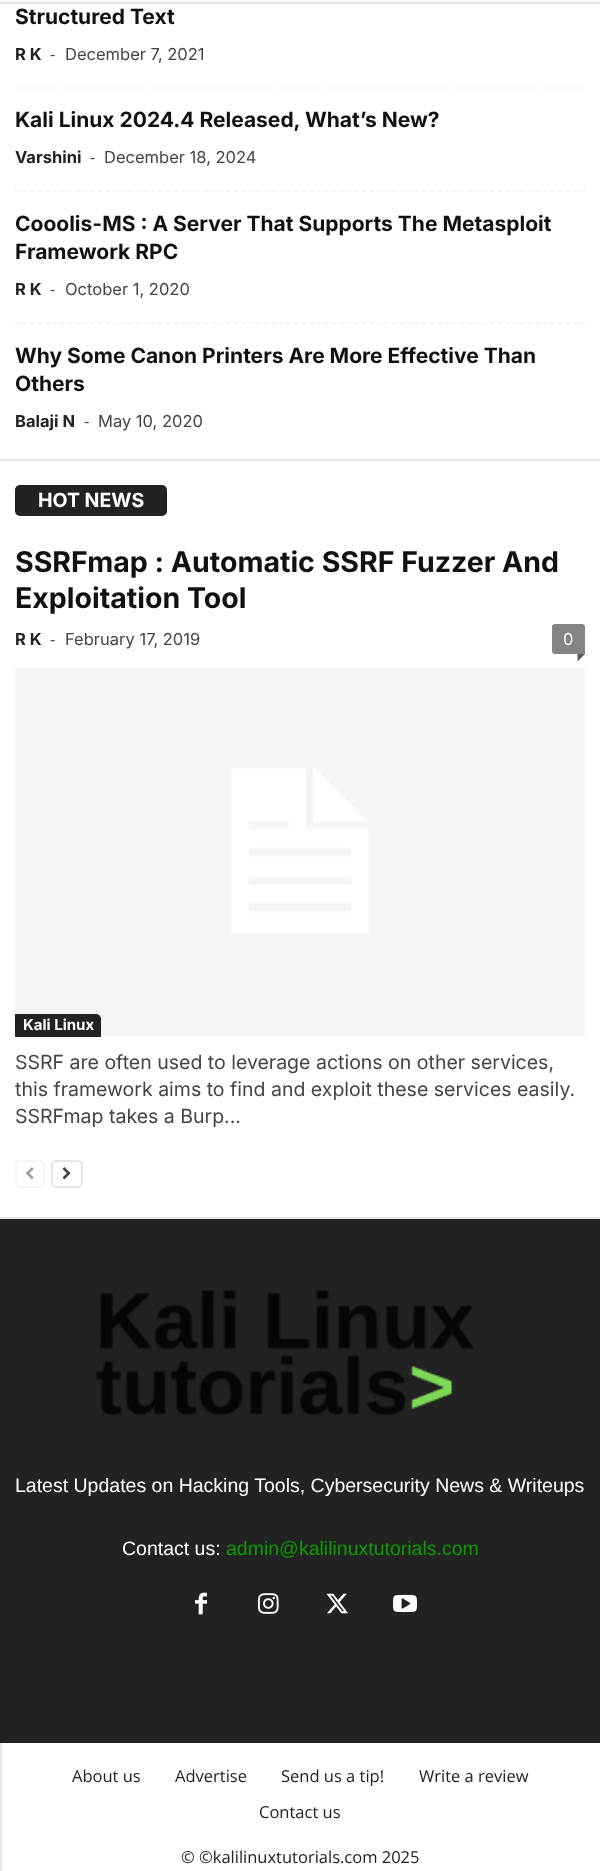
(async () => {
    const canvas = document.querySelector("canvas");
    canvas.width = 600;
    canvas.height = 1871;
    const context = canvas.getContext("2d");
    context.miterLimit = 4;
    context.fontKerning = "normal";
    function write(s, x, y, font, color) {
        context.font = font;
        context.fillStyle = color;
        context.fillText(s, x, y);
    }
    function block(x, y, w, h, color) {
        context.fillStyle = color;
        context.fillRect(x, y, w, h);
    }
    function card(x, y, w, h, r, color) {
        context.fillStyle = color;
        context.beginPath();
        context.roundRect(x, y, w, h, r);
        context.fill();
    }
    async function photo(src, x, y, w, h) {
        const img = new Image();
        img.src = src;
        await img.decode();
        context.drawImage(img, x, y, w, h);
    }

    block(0, 0, 600, 1871, "rgb(34, 34, 34)");
    block(0, 0, 600, 2, "rgb(252, 252, 252)");
    block(0, 2, 600, 2, "rgb(230, 230, 230)");
    block(0, 4, 600, 1213, "rgb(255, 255, 255)");
    block(0, 1217, 600, 2, "rgb(230, 230, 230)");
    context.beginPath();
    context.moveTo(15, 88);
    context.lineTo(585, 88);
    context.strokeStyle = "rgb(241, 241, 241)";
    context.lineWidth = 1.5;
    context.setLineDash([4.5, 3.04]);
    context.stroke();
    write("Structured Text", 15, 24, "bold 21px Inter", "rgb(17, 17, 17)");
    write("R K", 15, 60, "bold 16.5px Inter", "rgb(34, 34, 34)");
    write("-", 50, 60, "16.5px Open Sans", "rgb(68, 68, 68)");
    write("December 7, 2021", 65, 60, "16.5px Inter", "rgb(68, 68, 68)");
    context.beginPath();
    context.moveTo(15, 191);
    context.lineTo(585, 191);
    context.stroke();
    write("Kali Linux 2024.4 Released, What’s New?", 15, 127, "bold 21px Inter", "rgb(17, 17, 17)");
    write("Varshini", 15, 163, "bold 16.5px Inter", "rgb(34, 34, 34)");
    write("-", 90, 163, "16.5px Open Sans", "rgb(68, 68, 68)");
    write("December 18, 2024", 104, 163, "16.5px Inter", "rgb(68, 68, 68)");
    context.beginPath();
    context.moveTo(15, 323);
    context.lineTo(585, 323);
    context.stroke();
    write("Cooolis-MS : A Server That Supports The Metasploit", 15, 231, "bold 21px Inter", "rgb(17, 17, 17)");
    write("Framework RPC", 15, 259, "bold 21px Inter", "rgb(17, 17, 17)");
    write("R K", 15, 295, "bold 16.5px Inter", "rgb(34, 34, 34)");
    write("-", 50, 295, "16.5px Open Sans", "rgb(68, 68, 68)");
    write("October 1, 2020", 65, 295, "16.5px Inter", "rgb(68, 68, 68)");
    write("Why Some Canon Printers Are More Effective Than", 15, 363, "bold 21px Inter", "rgb(17, 17, 17)");
    write("Others", 15, 391, "bold 21px Inter", "rgb(17, 17, 17)");
    write("Balaji N", 15, 427, "bold 16.5px Inter", "rgb(34, 34, 34)");
    write("-", 84, 427, "16.5px Open Sans", "rgb(68, 68, 68)");
    write("May 10, 2020", 98, 427, "16.5px Inter", "rgb(68, 68, 68)");
    block(0, 459, 600, 2, "rgb(230, 230, 230)");
    card(15, 485, 152, 31, 5, "rgb(34, 34, 34)");
    write("HOT NEWS", 38, 507, "bold 19.5px Inter", "rgb(255, 255, 255)");
    write("SSRFmap : Automatic SSRF Fuzzer And", 15, 572, "bold 28.5px Inter", "rgb(17, 17, 17)");
    write("Exploitation Tool", 15, 608, "bold 28.5px Inter", "rgb(17, 17, 17)");
    write("R K", 15, 645, "bold 16.5px Inter", "rgb(34, 34, 34)");
    write("-", 50, 645, "16.5px Open Sans", "rgb(68, 68, 68)");
    write("February 17, 2019", 65, 645, "16.5px Inter", "rgb(68, 68, 68)");
    context.fillStyle = "rgb(132, 132, 132)";
    context.beginPath();
    context.roundRect(552, 624, 33, 30, [3, 3, 0, 3]);
    context.fill();
    write("0", 563, 645, "16.5px Inter", "rgb(255, 255, 255)");
    context.fillStyle = "rgb(91, 91, 91)";
    context.beginPath();
    context.moveTo(577.5, 654);
    context.lineTo(585, 654);
    context.lineTo(577.5, 661.5);
    context.closePath();
    context.fill();
    await photo("media/1.png", 15, 667, 570, 370);
    context.fillStyle = "rgb(34, 34, 34)";
    context.beginPath();
    context.roundRect(15, 1014, 86, 23, [0, 5, 0, 0]);
    context.fill();
    write("Kali Linux", 23, 1030, "bold 15px Inter", "rgb(255, 255, 255)");
    write("SSRF are often used to leverage actions on other services,", 15, 1069, "19.5px Inter", "rgb(68, 68, 68)");
    write("this framework aims to find and exploit these services easily.", 15, 1096, "19.5px Inter", "rgb(68, 68, 68)");
    write("SSRFmap takes a Burp...", 15, 1123, "19.5px Inter", "rgb(68, 68, 68)");
    context.beginPath();
    context.roundRect(16, 1161, 28, 26, 4);
    context.strokeStyle = "rgb(243, 243, 243)";
    context.lineWidth = 2;
    context.setLineDash([]);
    context.stroke();
    await photo("media/2.png", 25, 1167, 9, 13);
    context.beginPath();
    context.roundRect(52, 1161, 30, 26, 4);
    context.strokeStyle = "rgb(230, 230, 230)";
    context.stroke();
    await photo("media/3.png", 62, 1167, 9, 13);
    await photo("media/4.png", 95, 1290, 379, 126);
    write("Latest Updates on Hacking Tools, Cybersecurity News & Writeups", 15, 1492, "19.5px Liberation Sans", "rgb(255, 255, 255)");
    write("Contact us:", 122, 1555, "19.5px Liberation Sans", "rgb(255, 255, 255)");
    write("admin@kalilinuxtutorials.com", 226, 1555, "19.5px Liberation Sans", "rgb(10, 158, 1)");
    await photo("media/5.png", 195, 1592, 12, 23);
    await photo("media/6.png", 258, 1593, 21, 21);
    await photo("media/7.png", 326, 1593, 22, 21);
    await photo("media/8.png", 393, 1594, 24, 19);
    block(2, 1743, 598, 128, "rgb(255, 255, 255)");
    block(0, 1743, 2, 128, "rgb(230, 230, 230)");
    write("About us", 72, 1782, "16.5px Open Sans", "rgb(34, 34, 34)");
    write("Advertise", 175, 1782, "16.5px Open Sans", "rgb(34, 34, 34)");
    write("Send us a tip!", 281, 1782, "16.5px Open Sans", "rgb(34, 34, 34)");
    write("Write a review", 419, 1782, "16.5px Open Sans", "rgb(34, 34, 34)");
    write("Contact us", 259, 1818, "16.5px Open Sans", "rgb(34, 34, 34)");
    write("© ©kalilinuxtutorials.com 2025", 181, 1863, "16.5px Open Sans", "rgb(34, 34, 34)");
})();
